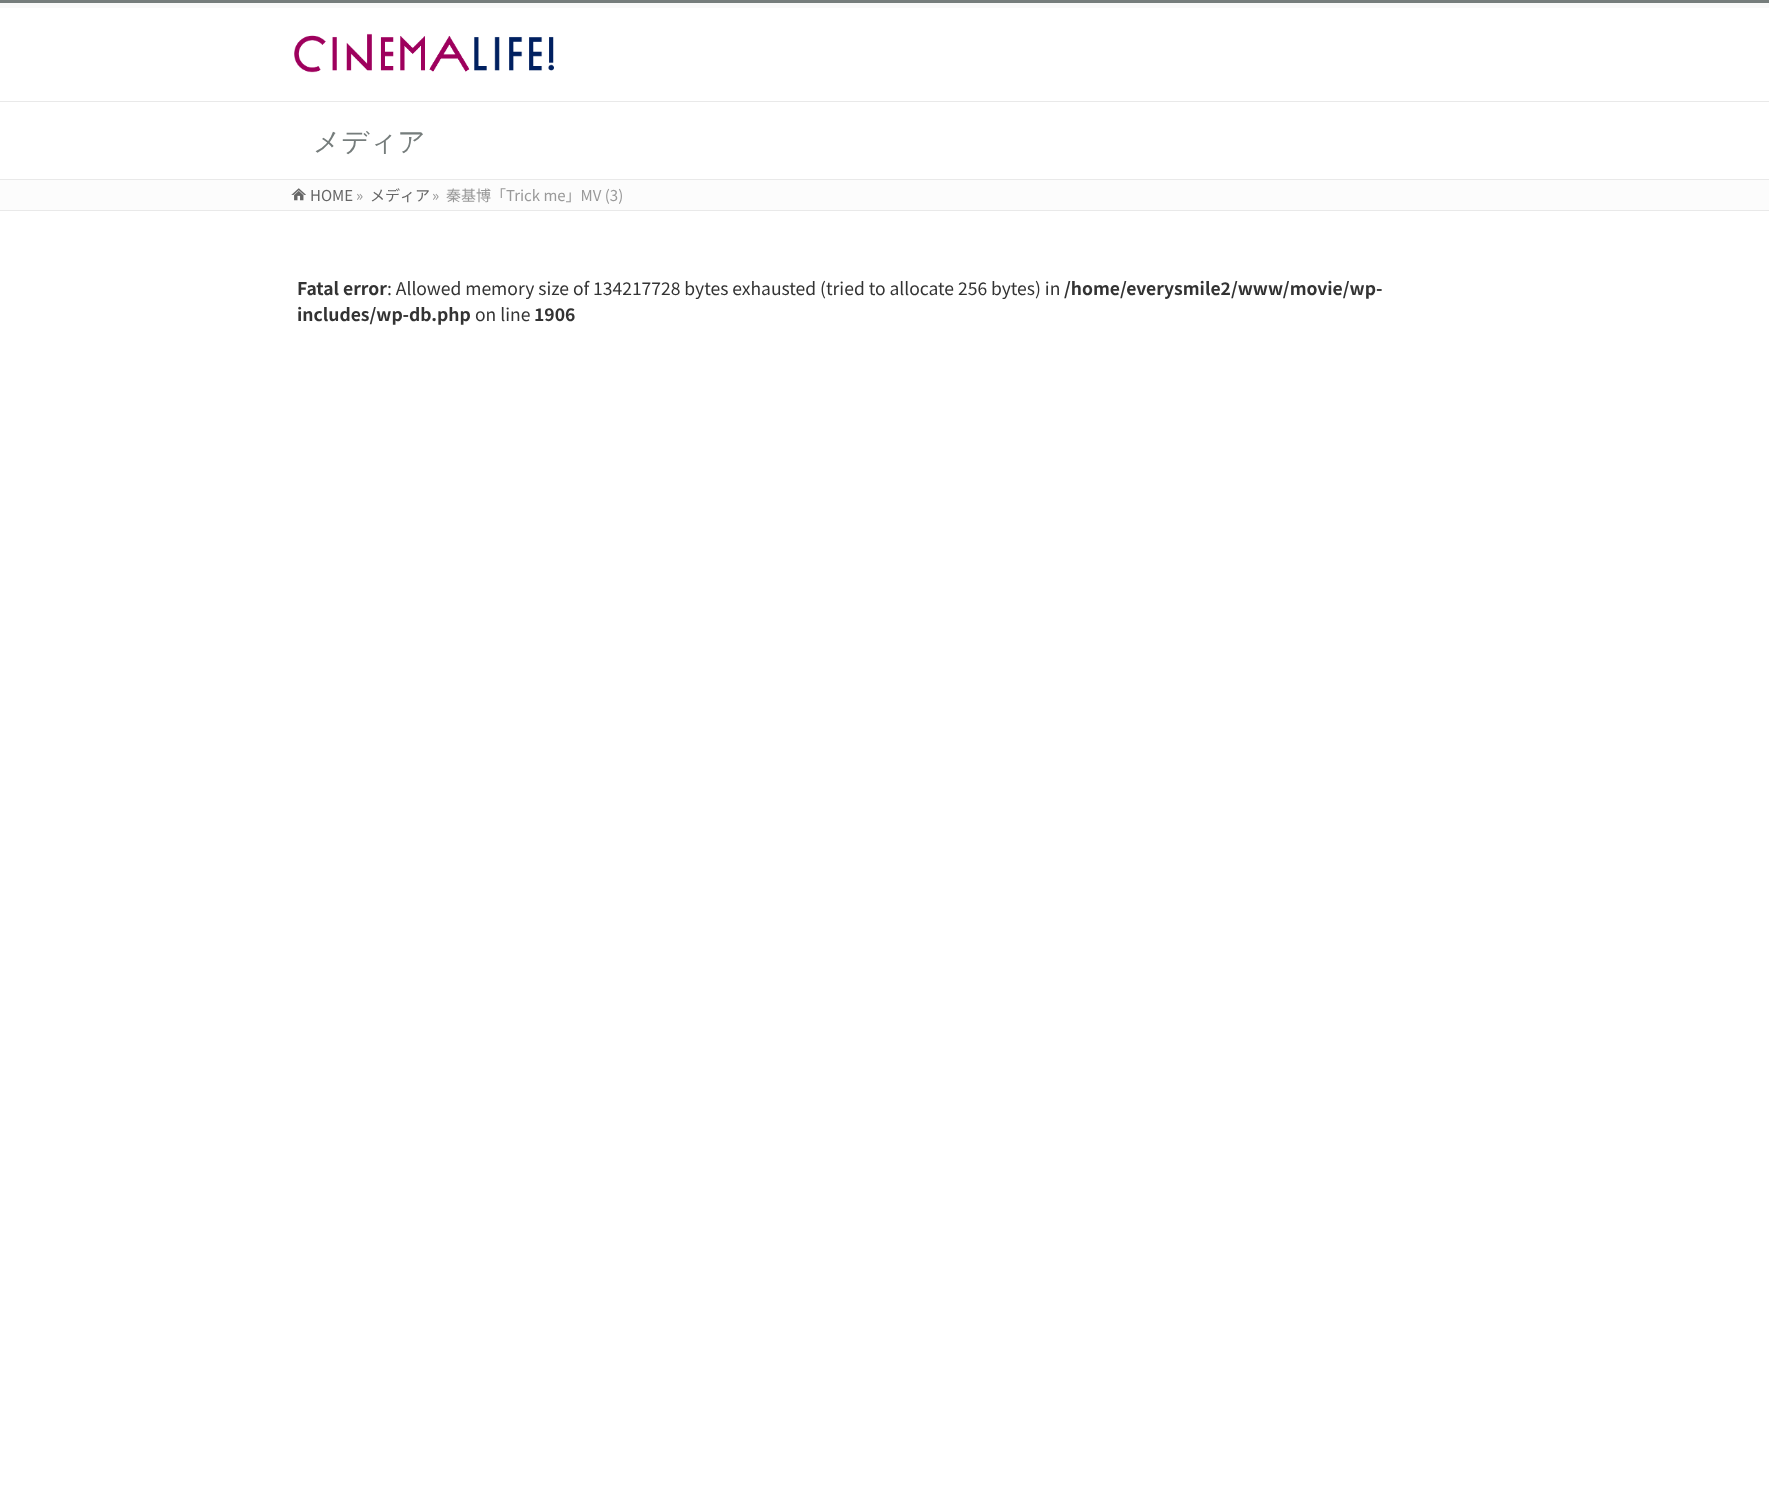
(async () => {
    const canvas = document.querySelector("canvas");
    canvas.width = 1769;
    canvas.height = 1494;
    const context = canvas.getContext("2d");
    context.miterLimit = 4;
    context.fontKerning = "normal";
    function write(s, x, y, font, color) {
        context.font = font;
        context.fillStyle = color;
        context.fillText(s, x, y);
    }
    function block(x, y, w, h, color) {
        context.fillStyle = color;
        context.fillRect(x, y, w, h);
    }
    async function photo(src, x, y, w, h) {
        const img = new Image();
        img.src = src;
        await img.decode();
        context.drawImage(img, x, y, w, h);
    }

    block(0, 0, 1769, 1494, "rgb(255, 255, 255)");
    block(0, 3, 1769, 5, "rgb(249, 249, 249)");
    block(0, 0, 1769, 3, "rgb(118, 125, 124)");
    await photo("media/1.png", 294, 33, 260, 40);
    block(0, 101, 1769, 1, "rgb(233, 233, 233)");
    block(0, 179, 1769, 1, "rgb(233, 233, 233)");
    write("メディア", 313, 151, "500 27.5px WenQuanYi Zen Hei", "rgb(118, 125, 124)");
    block(0, 180, 1769, 30, "rgb(252, 252, 252)");
    await photo("media/2.png", 291, 188, 15, 13);
    write("HOME", 310, 201, "15px Noto Sans JP", "rgb(102, 102, 102)");
    write("»", 356, 201, "15px Noto Sans JP", "rgb(153, 153, 153)");
    write("メディア", 370, 201, "15px Noto Sans JP", "rgb(102, 102, 102)");
    write("»", 432, 201, "15px Noto Sans JP", "rgb(153, 153, 153)");
    write("秦基博「Trick me」MV (3)", 446, 201, "15px Noto Sans JP", "rgb(153, 153, 153)");
    block(0, 210, 1769, 1, "rgb(233, 233, 233)");
    write("Fatal error", 297, 295, "bold 17.5px Noto Sans JP", "rgb(51, 51, 51)");
    write(": Allowed memory size of 134217728 bytes exhausted (tried to allocate 256 bytes) in", 387, 295, "17.5px Noto Sans JP", "rgb(51, 51, 51)");
    write("/home/everysmile2/www/movie/wp-", 1064, 295, "bold 17.5px Noto Sans JP", "rgb(51, 51, 51)");
    write("includes/wp-db.php", 297, 321, "bold 17.5px Noto Sans JP", "rgb(51, 51, 51)");
    write("on line", 475, 321, "17.5px Noto Sans JP", "rgb(51, 51, 51)");
    write("1906", 534, 321, "bold 17.5px Noto Sans JP", "rgb(51, 51, 51)");
})();
